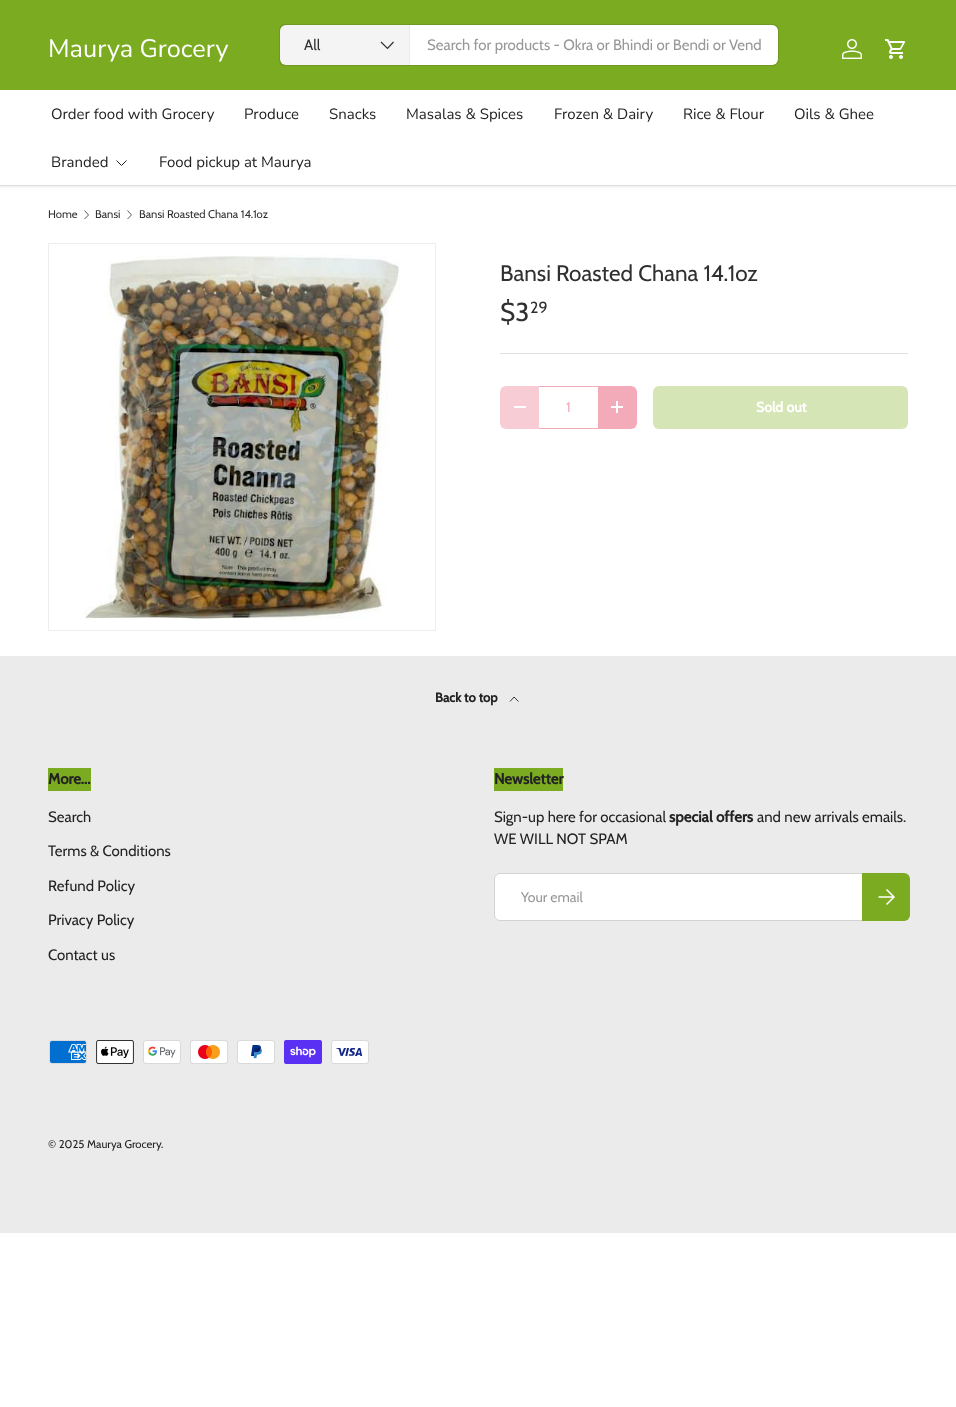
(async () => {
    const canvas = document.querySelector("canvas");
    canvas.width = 956;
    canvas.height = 1407;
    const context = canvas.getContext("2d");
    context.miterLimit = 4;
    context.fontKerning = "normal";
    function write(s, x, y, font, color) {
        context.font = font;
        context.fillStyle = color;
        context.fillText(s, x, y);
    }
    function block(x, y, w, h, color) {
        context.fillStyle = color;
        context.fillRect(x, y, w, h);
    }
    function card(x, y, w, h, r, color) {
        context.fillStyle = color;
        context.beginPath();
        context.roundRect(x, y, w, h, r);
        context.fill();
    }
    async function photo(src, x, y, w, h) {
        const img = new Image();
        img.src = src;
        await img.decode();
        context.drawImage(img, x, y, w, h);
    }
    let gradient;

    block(0, 0, 956, 1407, "rgb(255, 255, 255)");
    context.fillStyle = "rgba(0, 0, 0, 0.08)";
    context.filter = "blur(1.5px)";
    context.beginPath();
    context.rect(-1, -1, 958, 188);
    context.fill();
    context.filter = "none";
    block(0, 0, 956, 90, "rgb(123, 171, 32)");
    write("Maurya Grocery", 48, 57, "25.25px Nunito Sans", "rgb(255, 255, 255)");
    context.beginPath();
    context.roundRect(279.5, 24.5, 499, 41, 5.5);
    context.strokeStyle = "rgb(112, 153, 34)";
    context.stroke();
    card(280, 25, 498, 40, 6, "rgb(255, 255, 255)");
    block(280, 25, 129, 40, "rgba(48, 48, 48, 0.05)");
    block(409, 25, 1, 40, "rgb(235, 235, 235)");
    write("All", 304, 50, "15px Cabin", "rgb(48, 48, 48)");
    context.beginPath();
    context.moveTo(393.5, 42);
    context.lineTo(387.5, 48.5);
    context.lineTo(381, 42);
    context.strokeStyle = "rgb(48, 48, 48)";
    context.lineWidth = 1.2;
    context.stroke();
    write("Search for products - Okra or Bhindi or Bendi or Vend", 427, 50, "15px Cabin", "rgb(152, 152, 152)");
    await photo("media/1.png", 842, 39, 20, 20);
    await photo("media/2.png", 885, 39, 20, 20);
    block(0, 90, 956, 95, "rgb(255, 255, 255)");
    write("Order food with Grocery", 51, 119, "15px Nunito Sans", "rgb(34, 34, 34)");
    write("Produce", 244, 119, "15px Nunito Sans", "rgb(34, 34, 34)");
    write("Snacks", 329, 119, "15px Nunito Sans", "rgb(34, 34, 34)");
    write("Masalas & Spices", 406, 119, "15px Nunito Sans", "rgb(34, 34, 34)");
    write("Frozen & Dairy", 554, 119, "15px Nunito Sans", "rgb(34, 34, 34)");
    write("Rice & Flour", 683, 119, "15px Nunito Sans", "rgb(34, 34, 34)");
    write("Oils & Ghee", 794, 119, "15px Nunito Sans", "rgb(34, 34, 34)");
    write("Branded", 51, 167, "15px Nunito Sans", "rgb(34, 34, 34)");
    context.beginPath();
    context.moveTo(126.5, 160.5);
    context.lineTo(121.5, 165.5);
    context.lineTo(116.5, 160.5);
    context.strokeStyle = "rgb(34, 34, 34)";
    context.lineWidth = 1;
    context.stroke();
    write("Food pickup at Maurya", 159, 167, "15px Nunito Sans", "rgb(34, 34, 34)");
    block(0, 185, 956, 1, "rgb(222, 222, 222)");
    write("Home", 48, 218, "11.25px Cabin", "rgb(48, 48, 48)");
    context.beginPath();
    context.moveTo(84.5, 210.5);
    context.lineTo(88.5, 215);
    context.lineTo(84.5, 219);
    context.strokeStyle = "rgb(48, 48, 48)";
    context.lineWidth = 0.8;
    context.stroke();
    write("Bansi", 95, 218, "11.25px Cabin", "rgb(48, 48, 48)");
    context.beginPath();
    context.moveTo(127.5, 210.5);
    context.lineTo(131.5, 215);
    context.lineTo(127.5, 219);
    context.stroke();
    write("Bansi Roasted Chana 14.1oz", 139, 218, "11.25px Cabin", "rgb(48, 48, 48)");
    context.strokeStyle = "rgb(238, 238, 238)";
    context.lineWidth = 1;
    context.strokeRect(48.5, 243.5, 387, 387);
    await photo("media/3.png", 84, 255, 316, 364);
    write("Bansi Roasted Chana 14.1oz", 500, 281, "22.5px Cabin", "rgb(48, 48, 48)");
    write("$3", 500, 321, "26px Cabin", "rgb(48, 48, 48)");
    write("29", 530, 313, "16px Cabin", "rgb(48, 48, 48)");
    block(500, 353, 408, 1, "rgb(224, 224, 224)");
    context.fillStyle = "rgb(248, 204, 213)";
    context.beginPath();
    context.roundRect(500, 386, 39, 43, [6, 0, 0, 6]);
    context.fill();
    block(514, 406, 12, 2, "rgb(255, 255, 255)");
    block(539, 428, 59, 1, "rgb(243, 171, 185)");
    block(539, 386, 59, 1, "rgb(243, 171, 185)");
    write("1", 566, 412, "14px Cabin", "rgb(243, 171, 185)");
    context.beginPath();
    context.roundRect(598, 386, 39, 43, [0, 6, 6, 0]);
    context.fill();
    block(611, 406, 12, 2, "rgb(255, 255, 255)");
    block(616, 401, 2, 12, "rgb(255, 255, 255)");
    gradient = context.createLinearGradient(670, 316, 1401, 499);
    gradient.addColorStop(0.6, "rgb(213, 229, 182)");
    gradient.addColorStop(0.6, "rgb(202, 221, 166)");
    gradient.addColorStop(1, "rgb(202, 221, 166)");
    context.fillStyle = gradient;
    context.beginPath();
    context.roundRect(653, 386, 255, 43, 6);
    context.fill();
    write("Sold out", 756, 412, "bold 14px Cabin", "rgb(255, 255, 255)");
    block(0, 656, 956, 577, "rgb(235, 235, 235)");
    write("Back to top", 435, 702, "bold 13px Cabin", "rgb(34, 34, 34)");
    context.beginPath();
    context.moveTo(510, 701.5);
    context.lineTo(514, 697);
    context.lineTo(518.5, 701.5);
    context.strokeStyle = "rgb(34, 34, 34)";
    context.lineWidth = 0.9;
    context.stroke();
    block(48, 768, 43, 23, "rgb(123, 171, 32)");
    write("More...", 48, 784, "bold 15px Cabin", "rgb(34, 34, 34)");
    write("Search", 48, 822, "15px Cabin", "rgb(34, 34, 34)");
    write("Terms & Conditions", 48, 856, "15px Cabin", "rgb(34, 34, 34)");
    write("Refund Policy", 48, 891, "15px Cabin", "rgb(34, 34, 34)");
    write("Privacy Policy", 48, 925, "15px Cabin", "rgb(34, 34, 34)");
    write("Contact us", 48, 960, "15px Cabin", "rgb(34, 34, 34)");
    block(494, 768, 69, 23, "rgb(123, 171, 32)");
    write("Newsletter", 494, 784, "bold 15px Cabin", "rgb(34, 34, 34)");
    write("Sign-up here for occasional", 494, 822, "15px Cabin", "rgb(34, 34, 34)");
    write("special offers", 669, 822, "bold 15px Cabin", "rgb(34, 34, 34)");
    write("and new arrivals emails.", 757, 822, "15px Cabin", "rgb(34, 34, 34)");
    write("WE WILL NOT SPAM", 494, 844, "15px Cabin", "rgb(34, 34, 34)");
    card(494, 873, 414, 48, 6, "rgb(255, 255, 255)");
    context.beginPath();
    context.roundRect(494.5, 873.5, 413, 47, 5.5);
    context.strokeStyle = "rgba(34, 34, 34, 0.2)";
    context.lineWidth = 1;
    context.stroke();
    write("Your email", 521, 902, "14px Cabin", "rgb(152, 152, 152)");
    gradient = context.createLinearGradient(765, 879, 911, 915);
    gradient.addColorStop(0.6, "rgb(150, 191, 73)");
    gradient.addColorStop(0.6, "rgb(123, 171, 32)");
    gradient.addColorStop(1, "rgb(123, 171, 32)");
    context.fillStyle = gradient;
    context.beginPath();
    context.roundRect(862, 873, 48, 48, [0, 6, 6, 0]);
    context.fill();
    context.beginPath();
    context.moveTo(878.5, 897);
    context.lineTo(893.5, 897);
    context.moveTo(886.5, 889.5);
    context.lineTo(894, 897);
    context.lineTo(886.5, 904.5);
    context.strokeStyle = "rgb(255, 255, 255)";
    context.lineWidth = 1.5;
    context.stroke();
    await photo("media/4.png", 49, 1040, 38, 24);
    await photo("media/5.png", 96, 1040, 38, 24);
    await photo("media/6.png", 143, 1040, 38, 24);
    await photo("media/7.png", 190, 1040, 38, 24);
    await photo("media/8.png", 237, 1040, 38, 24);
    await photo("media/9.png", 284, 1040, 38, 24);
    await photo("media/10.png", 331, 1040, 38, 24);
    write("© 2025", 48, 1148, "11.25px Cabin", "rgb(34, 34, 34)");
    write("Maurya Grocery", 87, 1148, "11.25px Cabin", "rgb(34, 34, 34)");
    write(".", 161, 1148, "11.25px Cabin", "rgb(34, 34, 34)");
})();
